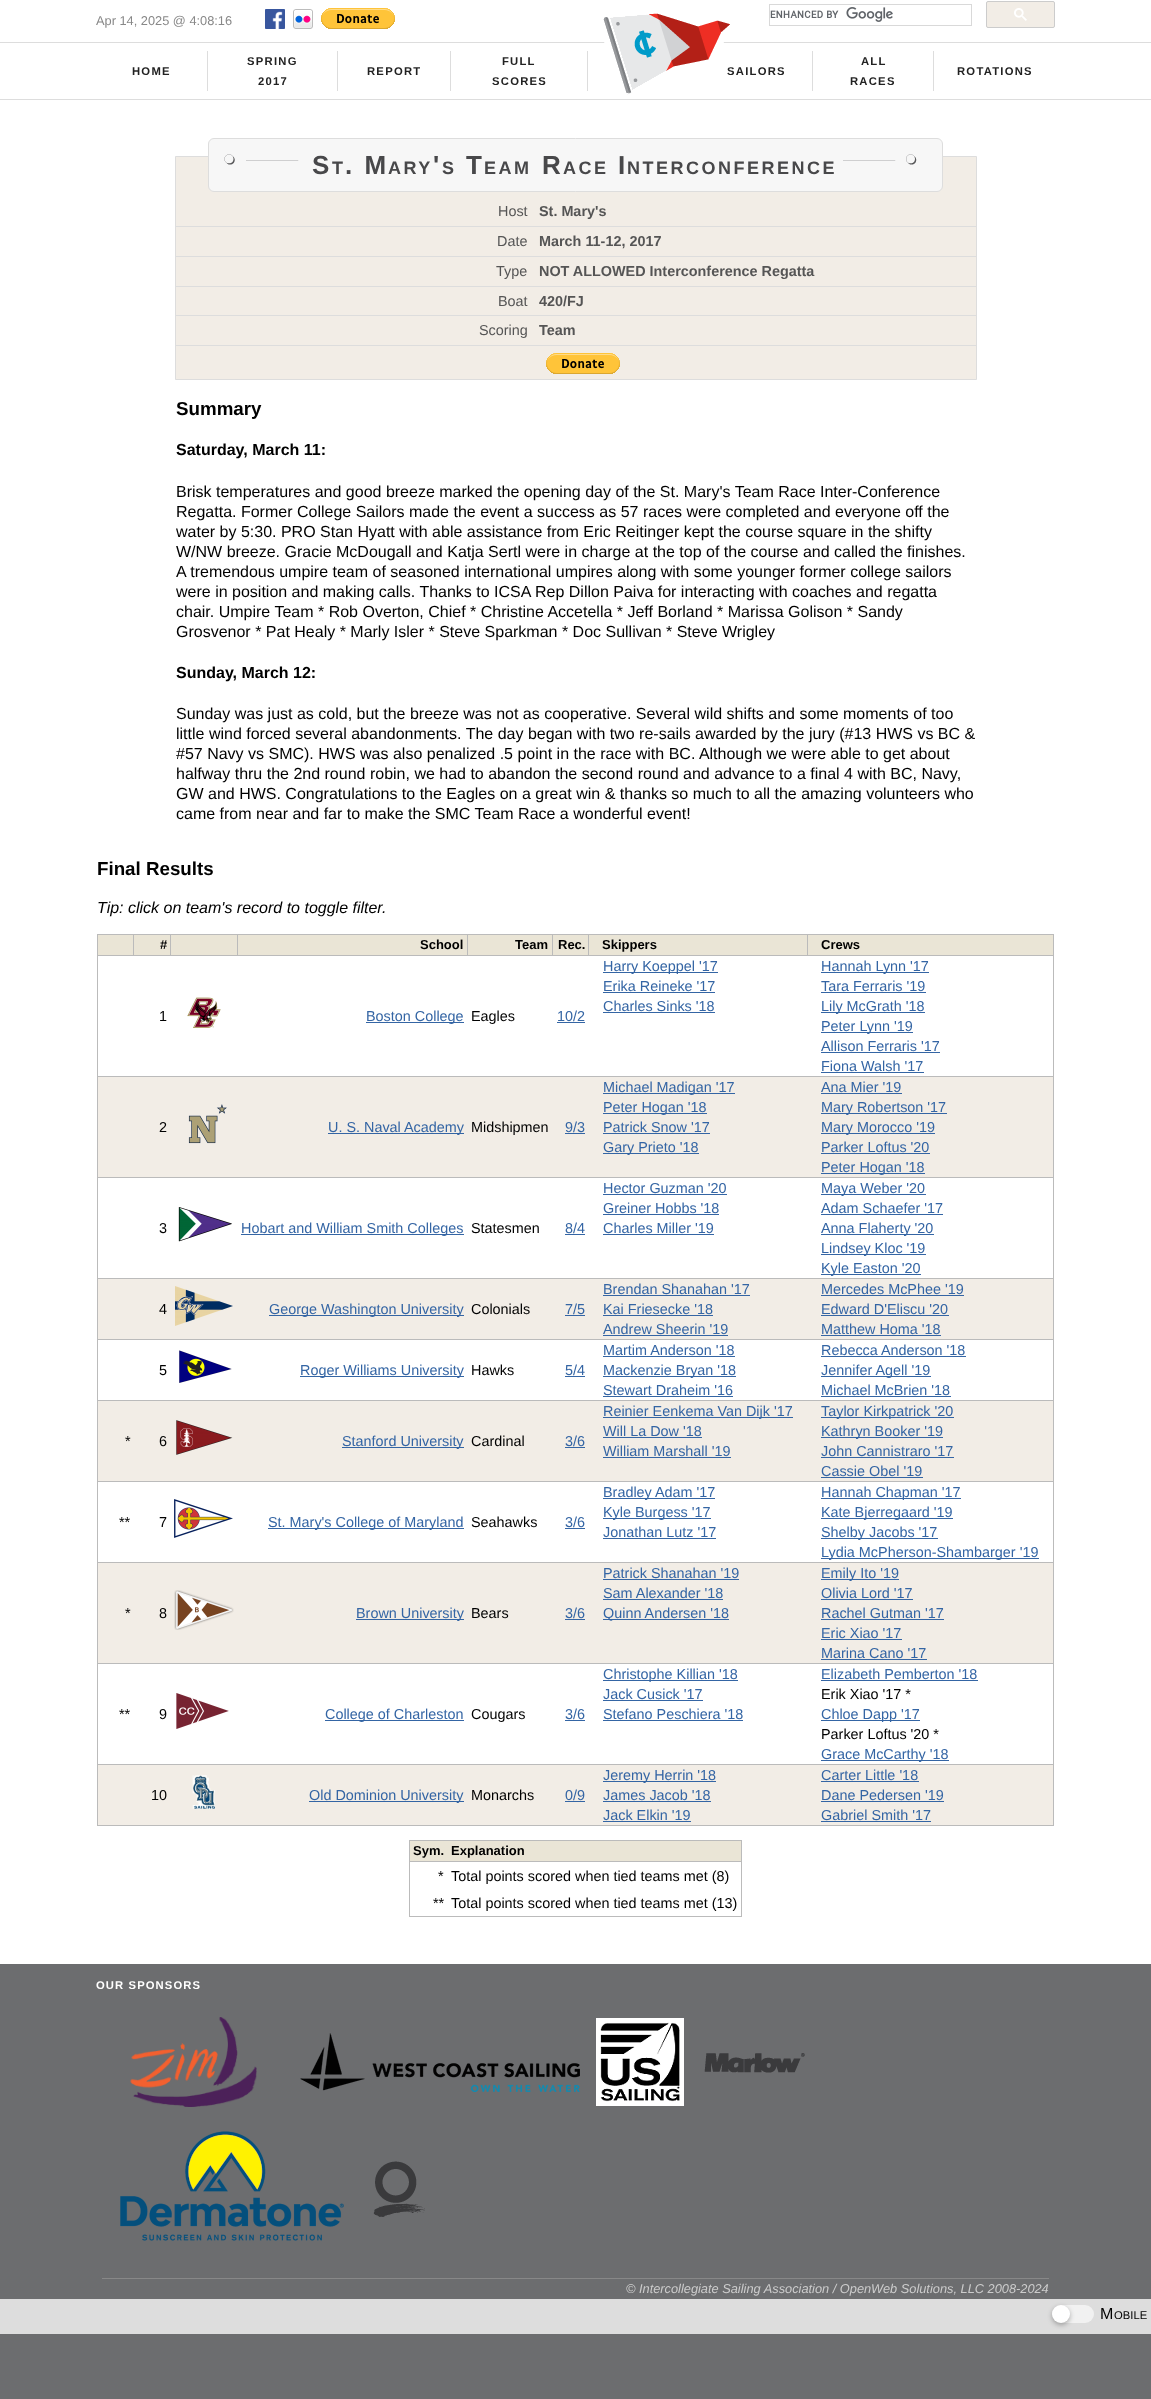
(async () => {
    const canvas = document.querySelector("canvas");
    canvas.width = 1151;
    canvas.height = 2399;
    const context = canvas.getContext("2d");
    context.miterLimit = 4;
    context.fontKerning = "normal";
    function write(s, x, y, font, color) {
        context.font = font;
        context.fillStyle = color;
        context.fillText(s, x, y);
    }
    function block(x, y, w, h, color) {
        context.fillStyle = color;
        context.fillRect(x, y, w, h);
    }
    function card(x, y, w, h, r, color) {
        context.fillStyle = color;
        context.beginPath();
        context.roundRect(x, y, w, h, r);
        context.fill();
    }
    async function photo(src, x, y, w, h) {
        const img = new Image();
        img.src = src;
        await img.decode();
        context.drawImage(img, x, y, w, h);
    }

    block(0, 0, 1151, 2399, "rgb(108, 109, 111)");
    block(0, 0, 1151, 99, "rgb(255, 255, 255)");
    write("Apr 14, 2025 @ 4:08:16", 96, 25, "12.8px Liberation Sans", "rgb(136, 136, 136)");
    await photo("media/1.png", 265, 9, 20, 20);
    await photo("media/2.png", 293, 9, 20, 20);
    await photo("media/3.png", 321, 8, 74, 21);
    context.strokeStyle = "rgb(217, 217, 217)";
    context.strokeRect(769.5, 4.5, 202, 21);
    await photo("media/4.png", 770, 7, 123, 15);
    context.fillStyle = "rgb(242, 237, 230)";
    context.beginPath();
    context.roundRect(986.5, 1.5, 68, 26, 1.5);
    context.fill();
    context.strokeStyle = "rgb(204, 204, 204)";
    context.stroke();
    await photo("media/5.png", 1014, 8, 13, 13);
    block(0, 42, 1151, 1, "rgb(221, 221, 221)");
    block(0, 99, 1151, 1, "rgb(221, 221, 221)");
    block(207, 51, 1, 40, "rgb(221, 221, 221)");
    context.letterSpacing = "1.25px";
    write("HOME", 132, 75, "bold 11.25px Liberation Sans", "rgb(34, 34, 34)");
    block(337, 51, 1, 40, "rgb(221, 221, 221)");
    write("SPRING", 247, 65, "bold 11.25px Liberation Sans", "rgb(34, 34, 34)");
    write("2017", 258, 85, "bold 11.25px Liberation Sans", "rgb(34, 34, 34)");
    block(450, 51, 1, 40, "rgb(221, 221, 221)");
    write("REPORT", 367, 75, "bold 11.25px Liberation Sans", "rgb(34, 34, 34)");
    block(587, 51, 1, 40, "rgb(221, 221, 221)");
    write("FULL", 502, 65, "bold 11.25px Liberation Sans", "rgb(34, 34, 34)");
    write("SCORES", 492, 85, "bold 11.25px Liberation Sans", "rgb(34, 34, 34)");
    write("SAILORS", 727, 75, "bold 11.25px Liberation Sans", "rgb(34, 34, 34)");
    await photo("media/6.png", 603, 13, 127, 82);
    block(812, 51, 1, 40, "rgb(221, 221, 221)");
    block(933, 51, 1, 40, "rgb(221, 221, 221)");
    write("ALL", 861, 65, "bold 11.25px Liberation Sans", "rgb(34, 34, 34)");
    write("RACES", 850, 85, "bold 11.25px Liberation Sans", "rgb(34, 34, 34)");
    write("ROTATIONS", 957, 75, "bold 11.25px Liberation Sans", "rgb(34, 34, 34)");
    block(0, 100, 1151, 1864, "rgb(255, 255, 255)");
    context.fillStyle = "rgb(242, 237, 230)";
    context.beginPath();
    context.rect(175.5, 156.5, 801, 223);
    context.fill();
    context.strokeStyle = "rgb(221, 221, 221)";
    context.stroke();
    context.fillStyle = "rgb(247, 247, 247)";
    context.beginPath();
    context.roundRect(208.5, 138.5, 734, 53, 5.5);
    context.fill();
    context.stroke();
    await photo("media/7.png", 224, 154, 75, 11);
    context.letterSpacing = "2.5px";
    write("S", 312, 174, "bold 26px Liberation Sans", "rgb(72, 72, 74)");
    write("T", 332, 174, "bold 18px Liberation Sans", "rgb(72, 72, 74)");
    write(". M", 345, 174, "bold 26px Liberation Sans", "rgb(72, 72, 74)");
    write("ARY", 388, 174, "bold 18px Liberation Sans", "rgb(72, 72, 74)");
    write("'", 433, 174, "bold 26px Liberation Sans", "rgb(72, 72, 74)");
    write("S", 442, 174, "bold 18px Liberation Sans", "rgb(72, 72, 74)");
    write("T", 466, 174, "bold 26px Liberation Sans", "rgb(72, 72, 74)");
    write("EAM", 484, 174, "bold 18px Liberation Sans", "rgb(72, 72, 74)");
    write("R", 542, 174, "bold 26px Liberation Sans", "rgb(72, 72, 74)");
    write("ACE", 563, 174, "bold 18px Liberation Sans", "rgb(72, 72, 74)");
    write("I", 618, 174, "bold 26px Liberation Sans", "rgb(72, 72, 74)");
    write("NTERCONFERENCE", 627, 174, "bold 18px Liberation Sans", "rgb(72, 72, 74)");
    await photo("media/8.png", 843, 154, 74, 11);
    block(175, 226, 801, 1, "rgb(221, 221, 221)");
    context.letterSpacing = "0px";
    write("Host", 498, 216, "14.4px Liberation Sans", "rgb(85, 85, 85)");
    write("St. Mary's", 539, 216, "bold 14.4px Liberation Sans", "rgb(85, 85, 85)");
    block(175, 256, 801, 1, "rgb(221, 221, 221)");
    write("Date", 497, 246, "14.4px Liberation Sans", "rgb(85, 85, 85)");
    write("March 11-12, 2017", 539, 246, "bold 14.4px Liberation Sans", "rgb(85, 85, 85)");
    block(175, 286, 801, 1, "rgb(221, 221, 221)");
    write("Type", 496, 276, "14.4px Liberation Sans", "rgb(85, 85, 85)");
    write("NOT ALLOWED Interconference Regatta", 539, 276, "bold 14.4px Liberation Sans", "rgb(85, 85, 85)");
    block(175, 315, 801, 1, "rgb(221, 221, 221)");
    write("Boat", 498, 306, "14.4px Liberation Sans", "rgb(85, 85, 85)");
    write("420/FJ", 539, 306, "bold 14.4px Liberation Sans", "rgb(85, 85, 85)");
    block(175, 345, 801, 1, "rgb(221, 221, 221)");
    write("Scoring", 479, 335, "14.4px Liberation Sans", "rgb(85, 85, 85)");
    write("Team", 539, 335, "bold 14.4px Liberation Sans", "rgb(85, 85, 85)");
    await photo("media/9.png", 546, 353, 74, 21);
    write("Summary", 176, 415, "bold 18.75px Liberation Sans", "rgb(0, 0, 0)");
    write("Saturday, March 11:", 176, 455, "bold 16px Liberation Sans", "rgb(0, 0, 0)");
    write("Brisk temperatures and good breeze marked the opening day of the St. Mary's Team Race Inter-Conference", 176, 497, "16px Liberation Sans", "rgb(0, 0, 0)");
    write("Regatta. Former College Sailors made the event a success as 57 races were completed and everyone off the", 176, 517, "16px Liberation Sans", "rgb(0, 0, 0)");
    write("water by 5:30. PRO Stan Hyatt with able assistance from Eric Reitinger kept the course square in the shifty", 176, 537, "16px Liberation Sans", "rgb(0, 0, 0)");
    write("W/NW breeze. Gracie McDougall and Katja Sertl were in charge at the top of the course and called the finishes.", 176, 557, "16px Liberation Sans", "rgb(0, 0, 0)");
    write("A tremendous umpire team of seasoned international umpires along with some younger former college sailors", 176, 577, "16px Liberation Sans", "rgb(0, 0, 0)");
    write("were in position and making calls. Thanks to ICSA Rep Dillon Paiva for interacting with coaches and regatta", 176, 597, "16px Liberation Sans", "rgb(0, 0, 0)");
    write("chair. Umpire Team * Rob Overton, Chief * Christine Accetella * Jeff Borland * Marissa Golison * Sandy", 176, 617, "16px Liberation Sans", "rgb(0, 0, 0)");
    write("Grosvenor * Pat Healy * Marly Isler * Steve Sparkman * Doc Sullivan * Steve Wrigley", 176, 637, "16px Liberation Sans", "rgb(0, 0, 0)");
    write("Sunday, March 12:", 176, 678, "bold 16px Liberation Sans", "rgb(0, 0, 0)");
    write("Sunday was just as cold, but the breeze was not as cooperative. Several wild shifts and some moments of too", 176, 719, "16px Liberation Sans", "rgb(0, 0, 0)");
    write("little wind forced several abandonments. The day began with two re-sails awarded by the jury (#13 HWS vs BC &", 176, 739, "16px Liberation Sans", "rgb(0, 0, 0)");
    write("#57 Navy vs SMC). HWS was also penalized .5 point in the race with BC. Although we were able to get about", 176, 759, "16px Liberation Sans", "rgb(0, 0, 0)");
    write("halfway thru the 2nd round robin, we had to abandon the second round and advance to a final 4 with BC, Navy,", 176, 779, "16px Liberation Sans", "rgb(0, 0, 0)");
    write("GW and HWS. Congratulations to the Eagles on a great win & thanks so much to all the amazing volunteers who", 176, 799, "16px Liberation Sans", "rgb(0, 0, 0)");
    write("came from near and far to make the SMC Team Race a wonderful event!", 176, 819, "16px Liberation Sans", "rgb(0, 0, 0)");
    write("Final Results", 97, 875, "bold 18.75px Liberation Sans", "rgb(0, 0, 0)");
    write("Tip: click on team's record to toggle filter.", 97, 913, "italic 16px Liberation Sans", "rgb(0, 0, 0)");
    block(98, 935, 955, 20, "rgb(234, 229, 214)");
    block(97, 934, 957, 1, "rgb(187, 187, 187)");
    block(97, 955, 957, 1, "rgb(187, 187, 187)");
    block(1053, 955, 1, 871, "rgb(187, 187, 187)");
    block(1053, 934, 1, 22, "rgb(187, 187, 187)");
    block(97, 1825, 957, 1, "rgb(187, 187, 187)");
    block(97, 955, 1, 871, "rgb(187, 187, 187)");
    block(97, 934, 1, 22, "rgb(187, 187, 187)");
    block(133, 934, 1, 22, "rgb(187, 187, 187)");
    write("#", 160, 949, "bold 13px Liberation Sans", "rgb(0, 0, 0)");
    block(170, 934, 1, 22, "rgb(187, 187, 187)");
    block(237, 934, 1, 22, "rgb(187, 187, 187)");
    write("School", 420, 949, "bold 13px Liberation Sans", "rgb(0, 0, 0)");
    block(467, 934, 1, 22, "rgb(187, 187, 187)");
    write("Team", 515, 949, "bold 13px Liberation Sans", "rgb(0, 0, 0)");
    block(552, 934, 1, 22, "rgb(187, 187, 187)");
    write("Rec.", 558, 949, "bold 13px Liberation Sans", "rgb(0, 0, 0)");
    block(588, 934, 1, 22, "rgb(187, 187, 187)");
    write("Skippers", 602, 949, "bold 13px Liberation Sans", "rgb(0, 0, 0)");
    block(807, 934, 1, 22, "rgb(187, 187, 187)");
    write("Crews", 821, 949, "bold 13px Liberation Sans", "rgb(0, 0, 0)");
    block(603, 972, 115, 1, "rgb(52, 101, 164)");
    write("Harry Koeppel '17", 603, 971, "14.4px Liberation Sans", "rgb(52, 101, 164)");
    block(821, 972, 108, 1, "rgb(52, 101, 164)");
    write("Hannah Lynn '17", 821, 971, "14.4px Liberation Sans", "rgb(52, 101, 164)");
    write("1", 159, 1021, "14.4px Liberation Sans", "rgb(0, 0, 0)");
    await photo("media/10.png", 187, 997, 34, 31);
    block(366, 1022, 98, 1, "rgb(52, 101, 164)");
    write("Boston College", 366, 1021, "14.4px Liberation Sans", "rgb(52, 101, 164)");
    write("Eagles", 471, 1021, "14.4px Liberation Sans", "rgb(0, 0, 0)");
    write("10/2", 557, 1021, "14.4px Liberation Sans", "rgb(52, 101, 164)");
    block(557, 1022, 28, 1, "rgb(52, 101, 164)");
    write("Erika Reineke '17", 603, 991, "14.4px Liberation Sans", "rgb(52, 101, 164)");
    block(603, 992, 112, 1, "rgb(52, 101, 164)");
    write("Tara Ferraris '19", 821, 991, "14.4px Liberation Sans", "rgb(52, 101, 164)");
    block(821, 992, 105, 1, "rgb(52, 101, 164)");
    write("Charles Sinks '18", 603, 1011, "14.4px Liberation Sans", "rgb(52, 101, 164)");
    block(603, 1012, 112, 1, "rgb(52, 101, 164)");
    block(821, 1012, 104, 1, "rgb(52, 101, 164)");
    write("Lily McGrath '18", 821, 1011, "14.4px Liberation Sans", "rgb(52, 101, 164)");
    block(821, 1032, 92, 1, "rgb(52, 101, 164)");
    write("Peter Lynn '19", 821, 1031, "14.4px Liberation Sans", "rgb(52, 101, 164)");
    write("Allison Ferraris '17", 821, 1051, "14.4px Liberation Sans", "rgb(52, 101, 164)");
    block(821, 1052, 119, 1, "rgb(52, 101, 164)");
    write("Fiona Walsh '17", 821, 1071, "14.4px Liberation Sans", "rgb(52, 101, 164)");
    block(821, 1072, 103, 1, "rgb(52, 101, 164)");
    block(98, 1077, 955, 100, "rgb(242, 237, 230)");
    block(603, 1093, 132, 1, "rgb(52, 101, 164)");
    write("Michael Madigan '17", 603, 1092, "14.4px Liberation Sans", "rgb(52, 101, 164)");
    block(97, 1076, 957, 1, "rgb(187, 187, 187)");
    write("Ana Mier '19", 821, 1092, "14.4px Liberation Sans", "rgb(52, 101, 164)");
    block(821, 1093, 81, 1, "rgb(52, 101, 164)");
    write("2", 159, 1132, "14.4px Liberation Sans", "rgb(0, 0, 0)");
    await photo("media/11.png", 188, 1104, 39, 40);
    block(328, 1133, 136, 1, "rgb(52, 101, 164)");
    write("U. S. Naval Academy", 328, 1132, "14.4px Liberation Sans", "rgb(52, 101, 164)");
    write("Midshipmen", 471, 1132, "14.4px Liberation Sans", "rgb(0, 0, 0)");
    write("9/3", 565, 1132, "14.4px Liberation Sans", "rgb(52, 101, 164)");
    block(565, 1133, 20, 1, "rgb(52, 101, 164)");
    block(603, 1113, 104, 1, "rgb(52, 101, 164)");
    write("Peter Hogan '18", 603, 1112, "14.4px Liberation Sans", "rgb(52, 101, 164)");
    block(821, 1113, 126, 1, "rgb(52, 101, 164)");
    write("Mary Robertson '17", 821, 1112, "14.4px Liberation Sans", "rgb(52, 101, 164)");
    write("Patrick Snow '17", 603, 1132, "14.4px Liberation Sans", "rgb(52, 101, 164)");
    block(603, 1133, 107, 1, "rgb(52, 101, 164)");
    block(821, 1133, 114, 1, "rgb(52, 101, 164)");
    write("Mary Morocco '19", 821, 1132, "14.4px Liberation Sans", "rgb(52, 101, 164)");
    block(603, 1153, 96, 1, "rgb(52, 101, 164)");
    write("Gary Prieto '18", 603, 1152, "14.4px Liberation Sans", "rgb(52, 101, 164)");
    write("Parker Loftus '20", 821, 1152, "14.4px Liberation Sans", "rgb(52, 101, 164)");
    block(821, 1153, 109, 1, "rgb(52, 101, 164)");
    block(821, 1173, 104, 1, "rgb(52, 101, 164)");
    write("Peter Hogan '18", 821, 1172, "14.4px Liberation Sans", "rgb(52, 101, 164)");
    write("Hector Guzman '20", 603, 1193, "14.4px Liberation Sans", "rgb(52, 101, 164)");
    block(603, 1194, 124, 1, "rgb(52, 101, 164)");
    block(97, 1177, 957, 1, "rgb(187, 187, 187)");
    block(821, 1194, 105, 1, "rgb(52, 101, 164)");
    write("Maya Weber '20", 821, 1193, "14.4px Liberation Sans", "rgb(52, 101, 164)");
    write("3", 159, 1233, "14.4px Liberation Sans", "rgb(0, 0, 0)");
    await photo("media/12.png", 178, 1207, 54, 35);
    block(241, 1234, 223, 1, "rgb(52, 101, 164)");
    write("Hobart and William Smith Colleges", 241, 1233, "14.4px Liberation Sans", "rgb(52, 101, 164)");
    write("Statesmen", 471, 1233, "14.4px Liberation Sans", "rgb(0, 0, 0)");
    write("8/4", 565, 1233, "14.4px Liberation Sans", "rgb(52, 101, 164)");
    block(565, 1234, 20, 1, "rgb(52, 101, 164)");
    write("Greiner Hobbs '18", 603, 1213, "14.4px Liberation Sans", "rgb(52, 101, 164)");
    block(603, 1214, 116, 1, "rgb(52, 101, 164)");
    write("Adam Schaefer '17", 821, 1213, "14.4px Liberation Sans", "rgb(52, 101, 164)");
    block(821, 1214, 122, 1, "rgb(52, 101, 164)");
    write("Charles Miller '19", 603, 1233, "14.4px Liberation Sans", "rgb(52, 101, 164)");
    block(603, 1234, 111, 1, "rgb(52, 101, 164)");
    block(821, 1234, 113, 1, "rgb(52, 101, 164)");
    write("Anna Flaherty '20", 821, 1233, "14.4px Liberation Sans", "rgb(52, 101, 164)");
    block(821, 1254, 105, 1, "rgb(52, 101, 164)");
    write("Lindsey Kloc '19", 821, 1253, "14.4px Liberation Sans", "rgb(52, 101, 164)");
    block(821, 1274, 100, 1, "rgb(52, 101, 164)");
    write("Kyle Easton '20", 821, 1273, "14.4px Liberation Sans", "rgb(52, 101, 164)");
    block(98, 1279, 955, 60, "rgb(242, 237, 230)");
    write("4", 159, 1314, "14.4px Liberation Sans", "rgb(0, 0, 0)");
    await photo("media/13.png", 175, 1286, 58, 40);
    block(269, 1315, 195, 1, "rgb(52, 101, 164)");
    write("George Washington University", 269, 1314, "14.4px Liberation Sans", "rgb(52, 101, 164)");
    write("Colonials", 471, 1314, "14.4px Liberation Sans", "rgb(0, 0, 0)");
    write("7/5", 565, 1314, "14.4px Liberation Sans", "rgb(52, 101, 164)");
    block(565, 1315, 20, 1, "rgb(52, 101, 164)");
    write("Brendan Shanahan '17", 603, 1294, "14.4px Liberation Sans", "rgb(52, 101, 164)");
    block(603, 1295, 147, 1, "rgb(52, 101, 164)");
    block(97, 1278, 957, 1, "rgb(187, 187, 187)");
    write("Mercedes McPhee '19", 821, 1294, "14.4px Liberation Sans", "rgb(52, 101, 164)");
    block(821, 1295, 143, 1, "rgb(52, 101, 164)");
    write("Kai Friesecke '18", 603, 1314, "14.4px Liberation Sans", "rgb(52, 101, 164)");
    block(603, 1315, 110, 1, "rgb(52, 101, 164)");
    write("Edward D'Eliscu '20", 821, 1314, "14.4px Liberation Sans", "rgb(52, 101, 164)");
    block(821, 1315, 128, 1, "rgb(52, 101, 164)");
    write("Andrew Sheerin '19", 603, 1334, "14.4px Liberation Sans", "rgb(52, 101, 164)");
    block(603, 1335, 125, 1, "rgb(52, 101, 164)");
    write("Matthew Homa '18", 821, 1334, "14.4px Liberation Sans", "rgb(52, 101, 164)");
    block(821, 1335, 120, 1, "rgb(52, 101, 164)");
    write("5", 159, 1375, "14.4px Liberation Sans", "rgb(0, 0, 0)");
    await photo("media/14.png", 179, 1350, 53, 33);
    block(300, 1376, 164, 1, "rgb(52, 101, 164)");
    write("Roger Williams University", 300, 1375, "14.4px Liberation Sans", "rgb(52, 101, 164)");
    write("Hawks", 471, 1375, "14.4px Liberation Sans", "rgb(0, 0, 0)");
    write("5/4", 565, 1375, "14.4px Liberation Sans", "rgb(52, 101, 164)");
    block(565, 1376, 20, 1, "rgb(52, 101, 164)");
    write("Martim Anderson '18", 603, 1355, "14.4px Liberation Sans", "rgb(52, 101, 164)");
    block(603, 1356, 132, 1, "rgb(52, 101, 164)");
    block(97, 1339, 957, 1, "rgb(187, 187, 187)");
    write("Rebecca Anderson '18", 821, 1355, "14.4px Liberation Sans", "rgb(52, 101, 164)");
    block(821, 1356, 145, 1, "rgb(52, 101, 164)");
    block(603, 1376, 133, 1, "rgb(52, 101, 164)");
    write("Mackenzie Bryan '18", 603, 1375, "14.4px Liberation Sans", "rgb(52, 101, 164)");
    block(821, 1376, 110, 1, "rgb(52, 101, 164)");
    write("Jennifer Agell '19", 821, 1375, "14.4px Liberation Sans", "rgb(52, 101, 164)");
    write("Stewart Draheim '16", 603, 1395, "14.4px Liberation Sans", "rgb(52, 101, 164)");
    block(603, 1396, 130, 1, "rgb(52, 101, 164)");
    write("Michael McBrien '18", 821, 1395, "14.4px Liberation Sans", "rgb(52, 101, 164)");
    block(821, 1396, 130, 1, "rgb(52, 101, 164)");
    block(98, 1401, 955, 80, "rgb(242, 237, 230)");
    block(603, 1417, 190, 1, "rgb(52, 101, 164)");
    write("Reinier Eenkema Van Dijk '17", 603, 1416, "14.4px Liberation Sans", "rgb(52, 101, 164)");
    block(97, 1400, 957, 1, "rgb(187, 187, 187)");
    block(821, 1417, 133, 1, "rgb(52, 101, 164)");
    write("Taylor Kirkpatrick '20", 821, 1416, "14.4px Liberation Sans", "rgb(52, 101, 164)");
    write("*", 125, 1446, "14.4px Liberation Sans", "rgb(0, 0, 0)");
    write("6", 159, 1446, "14.4px Liberation Sans", "rgb(0, 0, 0)");
    await photo("media/15.png", 176, 1420, 57, 35);
    block(342, 1447, 122, 1, "rgb(52, 101, 164)");
    write("Stanford University", 342, 1446, "14.4px Liberation Sans", "rgb(52, 101, 164)");
    write("Cardinal", 471, 1446, "14.4px Liberation Sans", "rgb(0, 0, 0)");
    write("3/6", 565, 1446, "14.4px Liberation Sans", "rgb(52, 101, 164)");
    block(565, 1447, 20, 1, "rgb(52, 101, 164)");
    write("Will La Dow '18", 603, 1436, "14.4px Liberation Sans", "rgb(52, 101, 164)");
    block(603, 1437, 99, 1, "rgb(52, 101, 164)");
    block(821, 1437, 122, 1, "rgb(52, 101, 164)");
    write("Kathryn Booker '19", 821, 1436, "14.4px Liberation Sans", "rgb(52, 101, 164)");
    write("William Marshall '19", 603, 1456, "14.4px Liberation Sans", "rgb(52, 101, 164)");
    block(603, 1457, 128, 1, "rgb(52, 101, 164)");
    write("John Cannistraro '17", 821, 1456, "14.4px Liberation Sans", "rgb(52, 101, 164)");
    block(821, 1457, 133, 1, "rgb(52, 101, 164)");
    write("Cassie Obel '19", 821, 1476, "14.4px Liberation Sans", "rgb(52, 101, 164)");
    block(821, 1477, 102, 1, "rgb(52, 101, 164)");
    block(603, 1498, 112, 1, "rgb(52, 101, 164)");
    write("Bradley Adam '17", 603, 1497, "14.4px Liberation Sans", "rgb(52, 101, 164)");
    block(97, 1481, 957, 1, "rgb(187, 187, 187)");
    block(821, 1498, 140, 1, "rgb(52, 101, 164)");
    write("Hannah Chapman '17", 821, 1497, "14.4px Liberation Sans", "rgb(52, 101, 164)");
    write("**", 119, 1527, "14.4px Liberation Sans", "rgb(0, 0, 0)");
    write("7", 159, 1527, "14.4px Liberation Sans", "rgb(0, 0, 0)");
    await photo("media/16.png", 174, 1499, 59, 39);
    block(268, 1528, 196, 1, "rgb(52, 101, 164)");
    write("St. Mary's College of Maryland", 268, 1527, "14.4px Liberation Sans", "rgb(52, 101, 164)");
    write("Seahawks", 471, 1527, "14.4px Liberation Sans", "rgb(0, 0, 0)");
    write("3/6", 565, 1527, "14.4px Liberation Sans", "rgb(52, 101, 164)");
    block(565, 1528, 20, 1, "rgb(52, 101, 164)");
    block(603, 1518, 108, 1, "rgb(52, 101, 164)");
    write("Kyle Burgess '17", 603, 1517, "14.4px Liberation Sans", "rgb(52, 101, 164)");
    block(821, 1518, 132, 1, "rgb(52, 101, 164)");
    write("Kate Bjerregaard '19", 821, 1517, "14.4px Liberation Sans", "rgb(52, 101, 164)");
    write("Jonathan Lutz '17", 603, 1537, "14.4px Liberation Sans", "rgb(52, 101, 164)");
    block(603, 1538, 113, 1, "rgb(52, 101, 164)");
    block(821, 1538, 117, 1, "rgb(52, 101, 164)");
    write("Shelby Jacobs '17", 821, 1537, "14.4px Liberation Sans", "rgb(52, 101, 164)");
    block(821, 1558, 218, 1, "rgb(52, 101, 164)");
    write("Lydia McPherson-Shambarger '19", 821, 1557, "14.4px Liberation Sans", "rgb(52, 101, 164)");
    block(98, 1563, 955, 100, "rgb(242, 237, 230)");
    write("Patrick Shanahan '19", 603, 1578, "14.4px Liberation Sans", "rgb(52, 101, 164)");
    block(603, 1579, 136, 1, "rgb(52, 101, 164)");
    block(97, 1562, 957, 1, "rgb(187, 187, 187)");
    block(821, 1579, 78, 1, "rgb(52, 101, 164)");
    write("Emily Ito '19", 821, 1578, "14.4px Liberation Sans", "rgb(52, 101, 164)");
    write("*", 125, 1618, "14.4px Liberation Sans", "rgb(0, 0, 0)");
    write("8", 159, 1618, "14.4px Liberation Sans", "rgb(0, 0, 0)");
    await photo("media/17.png", 174, 1590, 60, 40);
    block(356, 1619, 108, 1, "rgb(52, 101, 164)");
    write("Brown University", 356, 1618, "14.4px Liberation Sans", "rgb(52, 101, 164)");
    write("Bears", 471, 1618, "14.4px Liberation Sans", "rgb(0, 0, 0)");
    write("3/6", 565, 1618, "14.4px Liberation Sans", "rgb(52, 101, 164)");
    block(565, 1619, 20, 1, "rgb(52, 101, 164)");
    write("Sam Alexander '18", 603, 1598, "14.4px Liberation Sans", "rgb(52, 101, 164)");
    block(603, 1599, 120, 1, "rgb(52, 101, 164)");
    write("Olivia Lord '17", 821, 1598, "14.4px Liberation Sans", "rgb(52, 101, 164)");
    block(821, 1599, 92, 1, "rgb(52, 101, 164)");
    block(603, 1619, 126, 1, "rgb(52, 101, 164)");
    write("Quinn Andersen '18", 603, 1618, "14.4px Liberation Sans", "rgb(52, 101, 164)");
    write("Rachel Gutman '17", 821, 1618, "14.4px Liberation Sans", "rgb(52, 101, 164)");
    block(821, 1619, 123, 1, "rgb(52, 101, 164)");
    write("Eric Xiao '17", 821, 1638, "14.4px Liberation Sans", "rgb(52, 101, 164)");
    block(821, 1639, 81, 1, "rgb(52, 101, 164)");
    write("Marina Cano '17", 821, 1658, "14.4px Liberation Sans", "rgb(52, 101, 164)");
    block(821, 1659, 106, 1, "rgb(52, 101, 164)");
    block(603, 1680, 135, 1, "rgb(52, 101, 164)");
    write("Christophe Killian '18", 603, 1679, "14.4px Liberation Sans", "rgb(52, 101, 164)");
    block(97, 1663, 957, 1, "rgb(187, 187, 187)");
    write("Elizabeth Pemberton '18", 821, 1679, "14.4px Liberation Sans", "rgb(52, 101, 164)");
    block(821, 1680, 157, 1, "rgb(52, 101, 164)");
    write("**", 119, 1719, "14.4px Liberation Sans", "rgb(0, 0, 0)");
    write("9", 159, 1719, "14.4px Liberation Sans", "rgb(0, 0, 0)");
    await photo("media/18.png", 176, 1693, 53, 36);
    block(325, 1720, 139, 1, "rgb(52, 101, 164)");
    write("College of Charleston", 325, 1719, "14.4px Liberation Sans", "rgb(52, 101, 164)");
    write("Cougars", 471, 1719, "14.4px Liberation Sans", "rgb(0, 0, 0)");
    write("3/6", 565, 1719, "14.4px Liberation Sans", "rgb(52, 101, 164)");
    block(565, 1720, 20, 1, "rgb(52, 101, 164)");
    write("Jack Cusick '17", 603, 1699, "14.4px Liberation Sans", "rgb(52, 101, 164)");
    block(603, 1700, 100, 1, "rgb(52, 101, 164)");
    write("Erik Xiao '17 *", 821, 1699, "14.4px Liberation Sans", "rgb(0, 0, 0)");
    write("Stefano Peschiera '18", 603, 1719, "14.4px Liberation Sans", "rgb(52, 101, 164)");
    block(603, 1720, 140, 1, "rgb(52, 101, 164)");
    block(821, 1720, 99, 1, "rgb(52, 101, 164)");
    write("Chloe Dapp '17", 821, 1719, "14.4px Liberation Sans", "rgb(52, 101, 164)");
    write("Parker Loftus '20 *", 821, 1739, "14.4px Liberation Sans", "rgb(0, 0, 0)");
    block(821, 1760, 128, 1, "rgb(52, 101, 164)");
    write("Grace McCarthy '18", 821, 1759, "14.4px Liberation Sans", "rgb(52, 101, 164)");
    block(98, 1765, 955, 60, "rgb(242, 237, 230)");
    write("10", 151, 1800, "14.4px Liberation Sans", "rgb(0, 0, 0)");
    await photo("media/19.png", 192, 1775, 23, 34);
    block(309, 1801, 155, 1, "rgb(52, 101, 164)");
    write("Old Dominion University", 309, 1800, "14.4px Liberation Sans", "rgb(52, 101, 164)");
    write("Monarchs", 471, 1800, "14.4px Liberation Sans", "rgb(0, 0, 0)");
    write("0/9", 565, 1800, "14.4px Liberation Sans", "rgb(52, 101, 164)");
    block(565, 1801, 20, 1, "rgb(52, 101, 164)");
    block(603, 1781, 113, 1, "rgb(52, 101, 164)");
    write("Jeremy Herrin '18", 603, 1780, "14.4px Liberation Sans", "rgb(52, 101, 164)");
    block(97, 1764, 957, 1, "rgb(187, 187, 187)");
    write("Carter Little '18", 821, 1780, "14.4px Liberation Sans", "rgb(52, 101, 164)");
    block(821, 1781, 98, 1, "rgb(52, 101, 164)");
    write("James Jacob '18", 603, 1800, "14.4px Liberation Sans", "rgb(52, 101, 164)");
    block(603, 1801, 108, 1, "rgb(52, 101, 164)");
    write("Dane Pedersen '19", 821, 1800, "14.4px Liberation Sans", "rgb(52, 101, 164)");
    block(821, 1801, 123, 1, "rgb(52, 101, 164)");
    write("Jack Elkin '19", 603, 1820, "14.4px Liberation Sans", "rgb(52, 101, 164)");
    block(603, 1821, 88, 1, "rgb(52, 101, 164)");
    write("Gabriel Smith '17", 821, 1820, "14.4px Liberation Sans", "rgb(52, 101, 164)");
    block(821, 1821, 110, 1, "rgb(52, 101, 164)");
    block(410, 1841, 331, 20, "rgb(234, 229, 214)");
    block(409, 1840, 333, 1, "rgb(187, 187, 187)");
    block(409, 1861, 333, 1, "rgb(187, 187, 187)");
    block(741, 1861, 1, 56, "rgb(187, 187, 187)");
    block(741, 1840, 1, 22, "rgb(187, 187, 187)");
    block(409, 1916, 333, 1, "rgb(187, 187, 187)");
    block(409, 1861, 1, 56, "rgb(187, 187, 187)");
    block(409, 1840, 1, 22, "rgb(187, 187, 187)");
    write("Sym.", 413, 1855, "bold 13px Liberation Sans", "rgb(0, 0, 0)");
    write("Explanation", 451, 1855, "bold 13px Liberation Sans", "rgb(0, 0, 0)");
    write("*", 438, 1881, "14.4px Liberation Sans", "rgb(0, 0, 0)");
    write("Total points scored when tied teams met (8)", 451, 1881, "14.4px Liberation Sans", "rgb(0, 0, 0)");
    write("**", 433, 1908, "14.4px Liberation Sans", "rgb(0, 0, 0)");
    write("Total points scored when tied teams met (13)", 451, 1908, "14.4px Liberation Sans", "rgb(0, 0, 0)");
    context.letterSpacing = "1.1px";
    write("OUR SPONSORS", 96, 1989, "bold 11.25px Liberation Sans", "rgb(255, 255, 255)");
    await photo("media/20.png", 130, 2017, 127, 90);
    await photo("media/21.png", 300, 2033, 280, 59);
    await photo("media/22.png", 596, 2018, 88, 88);
    await photo("media/23.png", 704, 2053, 101, 20);
    await photo("media/24.png", 120, 2131, 224, 110);
    await photo("media/25.png", 373, 2161, 52, 56);
    block(102, 2278, 947, 1, "rgb(136, 136, 136)");
    context.letterSpacing = "0px";
    write("© Intercollegiate Sailing Association / OpenWeb Solutions, LLC 2008-2024", 626, 2293, "italic 12.8px Liberation Sans", "rgb(204, 204, 204)");
    block(0, 2299, 1151, 35, "rgb(221, 221, 221)");
    card(1052, 2305, 42, 18, 9, "rgb(241, 241, 241)");
    context.fillStyle = "rgba(0, 0, 0, 0.3)";
    context.filter = "blur(2.5px)";
    context.beginPath();
    context.roundRect(1052, 2307, 18, 18, 9);
    context.fill();
    context.filter = "none";
    context.fillStyle = "rgb(255, 255, 255)";
    context.beginPath();
    context.arc(1061, 2314, 9, 0, Math.PI * 2);
    context.fill();
    write("M", 1100, 2319, "16px Liberation Sans", "rgb(0, 0, 0)");
    write("OBILE", 1114, 2319, "11.25px Liberation Sans", "rgb(0, 0, 0)");
})();
